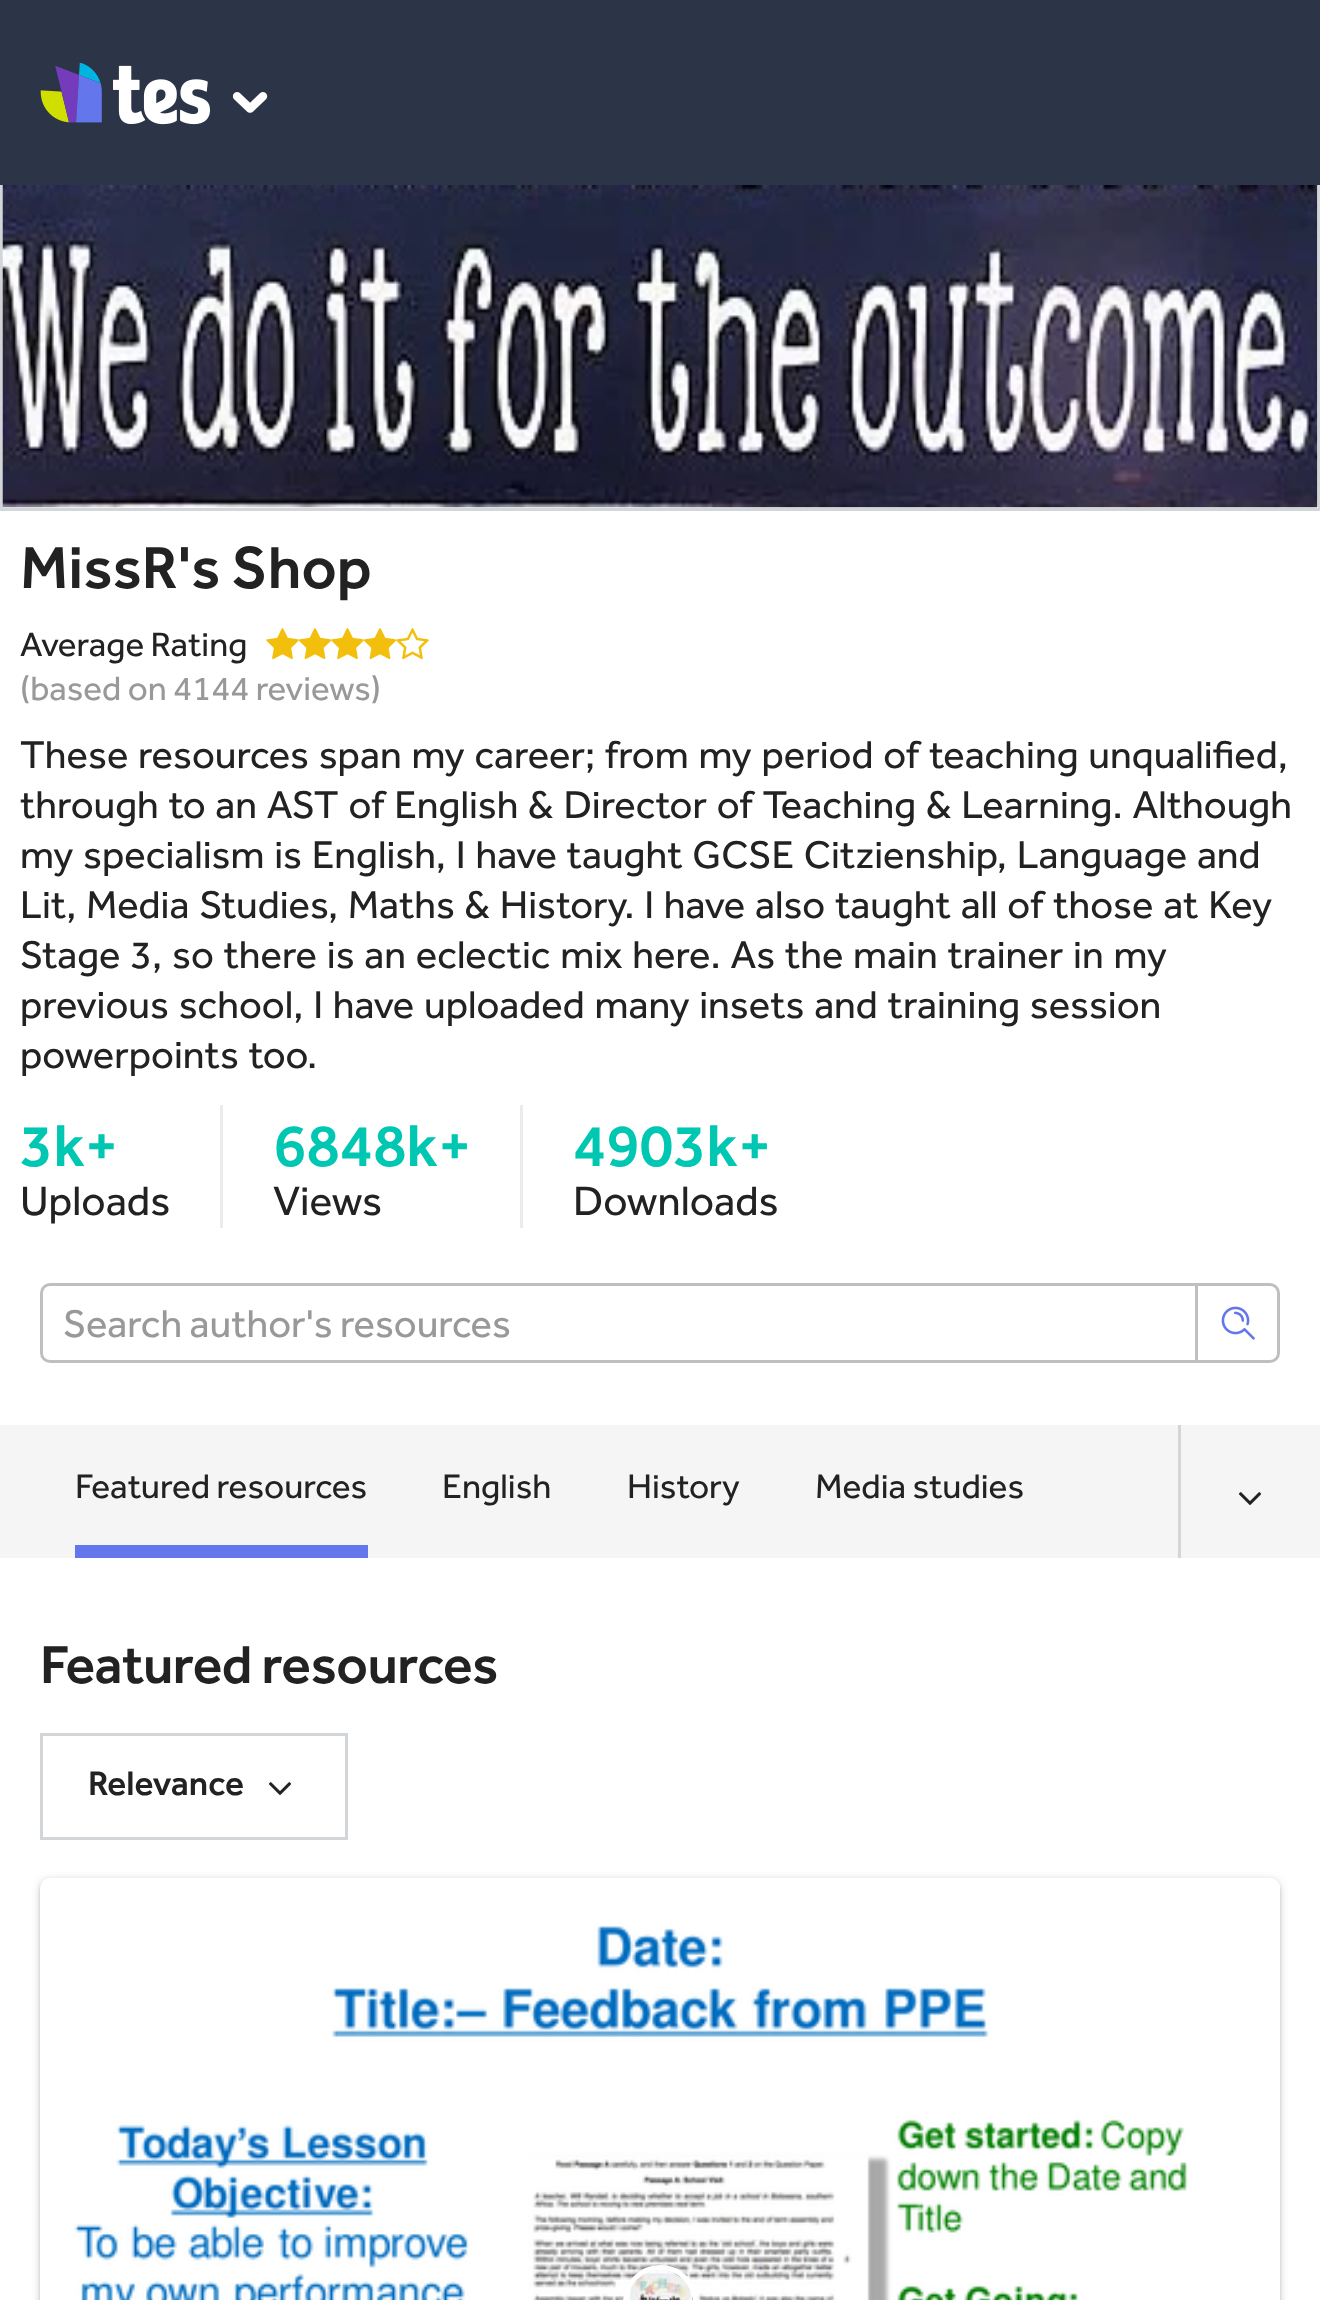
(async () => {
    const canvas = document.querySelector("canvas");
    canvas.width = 1320;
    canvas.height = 2300;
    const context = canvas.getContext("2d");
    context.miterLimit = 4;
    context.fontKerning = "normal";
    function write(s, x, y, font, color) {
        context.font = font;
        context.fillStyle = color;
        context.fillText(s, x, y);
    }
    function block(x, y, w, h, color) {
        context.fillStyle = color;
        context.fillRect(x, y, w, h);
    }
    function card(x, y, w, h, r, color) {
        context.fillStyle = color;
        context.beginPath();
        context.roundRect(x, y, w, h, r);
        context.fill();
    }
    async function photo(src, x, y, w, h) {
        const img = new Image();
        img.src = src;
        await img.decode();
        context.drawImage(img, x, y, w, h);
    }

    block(0, 0, 1320, 2300, "rgb(255, 255, 255)");
    block(0, 0, 1320, 185, "rgb(43, 53, 71)");
    await photo("media/1.png", 40, 63, 62, 60);
    await photo("media/2.png", 113, 65, 97, 60);
    await photo("media/3.png", 232, 92, 36, 21);
    block(1318, 185, 2, 325, "rgb(210, 214, 217)");
    block(0, 508, 1320, 3, "rgb(210, 214, 217)");
    block(0, 185, 3, 325, "rgb(210, 214, 217)");
    await photo("media/4.png", 2, 185, 1316, 323);
    write("MissR's Shop", 20, 588, "500 61.25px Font", "rgb(34, 34, 34)");
    write("Average Rating", 20, 656, "35px Font", "rgb(34, 34, 34)");
    await photo("media/5.png", 266, 628, 33, 32);
    await photo("media/6.png", 298, 628, 34, 32);
    await photo("media/7.png", 331, 628, 33, 32);
    await photo("media/6.png", 363, 628, 34, 32);
    await photo("media/8.png", 396, 628, 33, 32);
    write("(based on 4144 reviews)", 20, 700, "35px Font", "rgb(153, 153, 153)");
    context.wordSpacing = "2.5px";
    write("These resources span my career; from my period of teaching unqualified,", 20, 768, "40px Font", "rgb(34, 34, 34)");
    write("through to an AST of English & Director of Teaching & Learning. Although", 20, 818, "40px Font", "rgb(34, 34, 34)");
    write("my specialism is English, I have taught GCSE Citzienship, Language and", 20, 868, "40px Font", "rgb(34, 34, 34)");
    write("Lit, Media Studies, Maths & History. I have also taught all of those at Key", 20, 918, "40px Font", "rgb(34, 34, 34)");
    write("Stage 3, so there is an eclectic mix here. As the main trainer in my", 20, 968, "40px Font", "rgb(34, 34, 34)");
    write("previous school, I have uploaded many insets and training session", 20, 1018, "40px Font", "rgb(34, 34, 34)");
    write("powerpoints too.", 20, 1068, "40px Font", "rgb(34, 34, 34)");
    context.wordSpacing = "0px";
    write("3k+", 20, 1166, "500 61.25px Font", "rgb(0, 199, 177)");
    write("Uploads", 20, 1215, "42.5px Font", "rgb(34, 34, 34)");
    block(220, 1105, 3, 123, "rgb(235, 235, 235)");
    write("6848k+", 273, 1166, "500 61.25px Font", "rgb(0, 199, 177)");
    write("Views", 273, 1215, "42.5px Font", "rgb(34, 34, 34)");
    block(520, 1105, 3, 123, "rgb(235, 235, 235)");
    write("4903k+", 573, 1166, "500 61.25px Font", "rgb(0, 199, 177)");
    write("Downloads", 573, 1215, "42.5px Font", "rgb(34, 34, 34)");
    context.beginPath();
    context.roundRect(41.5, 1284.5, 1155, 77, [8.5, 0, 0, 8.5]);
    context.strokeStyle = "rgb(191, 191, 191)";
    context.lineWidth = 3;
    context.stroke();
    write("Search author's resources", 63, 1337, "40px Font", "rgb(153, 153, 153)");
    context.beginPath();
    context.roundRect(1196.5, 1284.5, 82, 77, [0, 8.5, 8.5, 0]);
    context.stroke();
    await photo("media/9.png", 1221, 1306, 34, 34);
    block(0, 1425, 1320, 133, "rgb(245, 245, 245)");
    block(75, 1545, 293, 13, "rgb(99, 118, 236)");
    write("Featured resources", 75, 1498, "35.25px Font", "rgb(34, 34, 34)");
    write("English", 442, 1498, "35.25px Font", "rgb(34, 34, 34)");
    write("History", 627, 1498, "35.25px Font", "rgb(34, 34, 34)");
    write("Media studies", 815, 1498, "35.25px Font", "rgb(34, 34, 34)");
    block(1178, 1425, 3, 133, "rgb(210, 214, 217)");
    await photo("media/10.png", 1238, 1492, 24, 13);
    context.letterSpacing = "-0.5px";
    write("Featured resources", 40, 1683, "500 55px Font", "rgb(34, 34, 34)");
    context.strokeStyle = "rgb(210, 214, 217)";
    context.strokeRect(41.5, 1734.5, 305, 104);
    context.letterSpacing = "0px";
    write("Relevance", 88, 1795, "500 35.25px Font", "rgb(34, 34, 34)");
    await photo("media/11.png", 268, 1782, 24, 13);
    context.fillStyle = "rgba(0, 0, 0, 0.2)";
    context.filter = "blur(4px)";
    context.beginPath();
    context.roundRect(40, 1880, 1240, 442, 10);
    context.fill();
    context.filter = "none";
    context.fillStyle = "rgba(0, 0, 0, 0.14)";
    context.filter = "blur(1px)";
    context.beginPath();
    context.roundRect(40, 1880, 1240, 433, 10);
    context.fill();
    context.filter = "none";
    card(40, 1878, 1240, 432, 10, "rgb(255, 255, 255)");
    await photo("media/12.png", 74, 1884, 1206, 416);
    context.beginPath();
    context.arc(660.5, 2302.5, 35, 0, Math.PI * 2);
    context.strokeStyle = "rgb(255, 255, 255)";
    context.lineWidth = 5;
    context.stroke();
    await photo("media/13.png", 628, 2270, 65, 30);
})();
